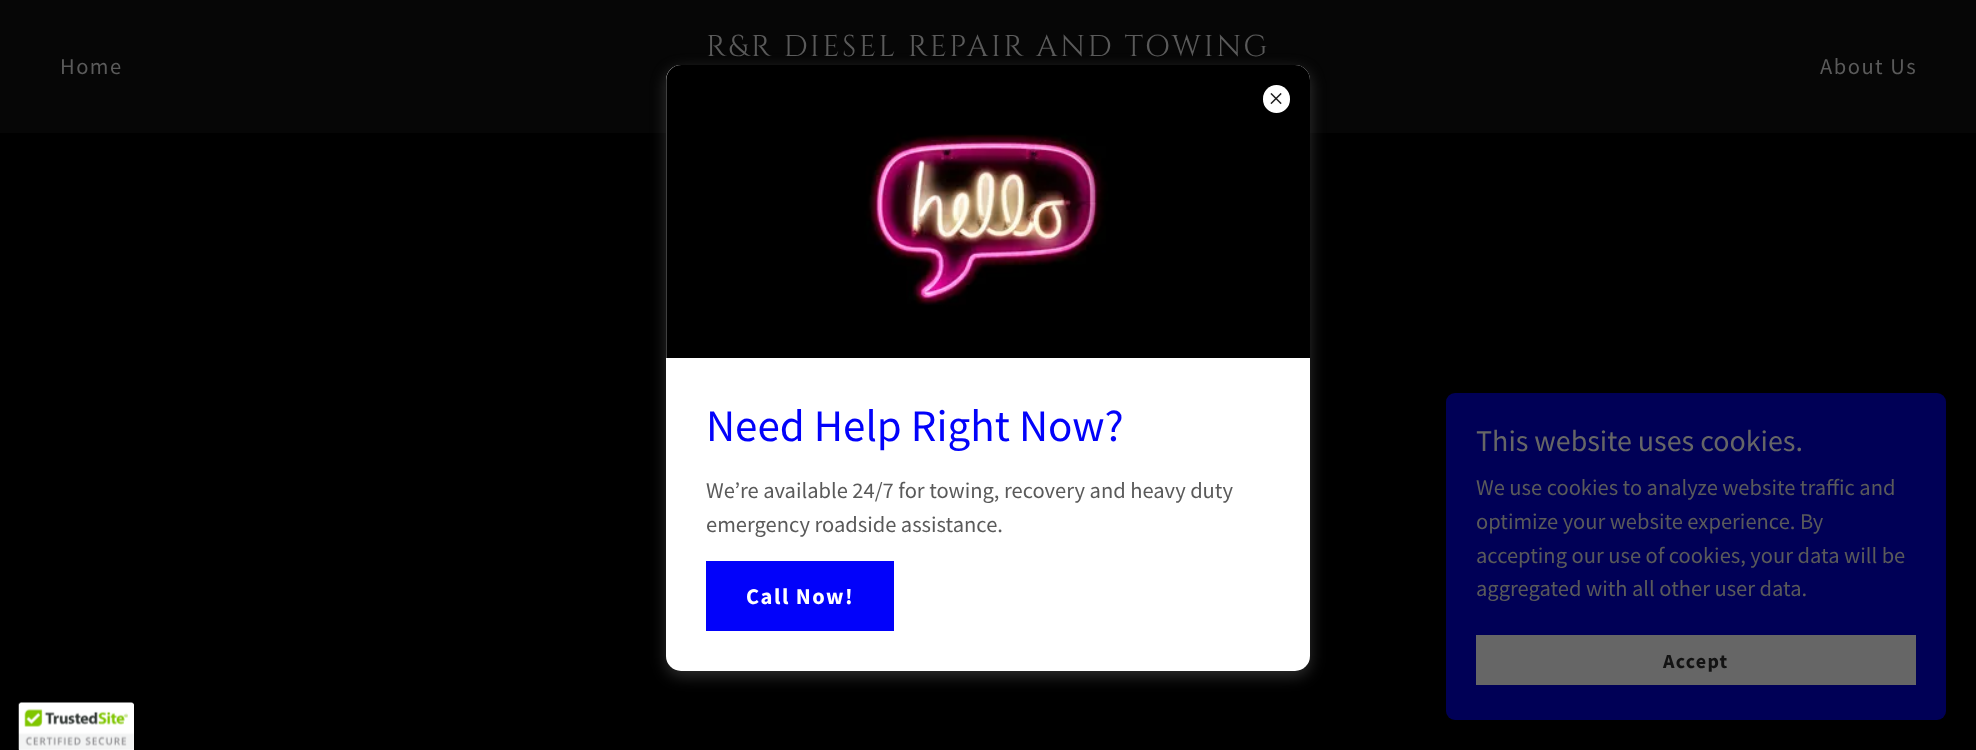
(async () => {
    const canvas = document.querySelector("canvas");
    canvas.width = 1976;
    canvas.height = 750;
    const context = canvas.getContext("2d");
    context.miterLimit = 4;
    context.fontKerning = "normal";
    function write(s, x, y, font, color) {
        context.font = font;
        context.fillStyle = color;
        context.fillText(s, x, y);
    }
    function block(x, y, w, h, color) {
        context.fillStyle = color;
        context.fillRect(x, y, w, h);
    }
    function card(x, y, w, h, r, color) {
        context.fillStyle = color;
        context.beginPath();
        context.roundRect(x, y, w, h, r);
        context.fill();
    }
    async function photo(src, x, y, w, h) {
        const img = new Image();
        img.src = src;
        await img.decode();
        context.drawImage(img, x, y, w, h);
    }

    block(0, 0, 1976, 750, "rgb(0, 0, 0)");
    block(0, 0, 1976, 133, "rgb(6, 6, 6)");
    context.letterSpacing = "2.5px";
    write("R&R DIESEL REPAIR AND TOWING", 706, 56, "30px Cinzel", "rgb(90, 90, 90)");
    context.letterSpacing = "1.5px";
    write("Home", 60, 74, "22.5px Source Sans Pro", "rgb(90, 90, 90)");
    write("About Us", 1820, 74, "22.5px Source Sans Pro", "rgb(90, 90, 90)");
    context.fillStyle = "rgba(117, 117, 117, 0.4)";
    context.filter = "blur(7.5px)";
    context.beginPath();
    context.roundRect(666, 70, 644, 606, 15);
    context.fill();
    context.filter = "none";
    card(666, 65, 644, 606, 15, "rgb(255, 255, 255)");
    await photo("media/2.png", 666, 65, 644, 293);
    card(1263, 85, 27, 28, 13.5, "rgb(255, 255, 255)");
    await photo("media/1.png", 1270, 93, 12, 12);
    context.letterSpacing = "0px";
    write("Need Help Right Now?", 706, 441, "45px Source Sans Pro", "rgb(2, 2, 250)");
    write("We’re available 24/7 for towing, recovery and heavy duty", 706, 498, "22.5px Source Sans Pro", "rgb(90, 90, 90)");
    write("emergency roadside assistance.", 706, 532, "22.5px Source Sans Pro", "rgb(90, 90, 90)");
    block(706, 561, 188, 70, "rgb(2, 2, 250)");
    context.letterSpacing = "1.5px";
    write("Call Now!", 746, 604, "bold 22.5px Source Sans Pro", "rgb(255, 255, 255)");
    card(1446, 393, 500, 327, 9, "rgb(0, 0, 86)");
    context.letterSpacing = "0px";
    write("This website uses cookies.", 1476, 451, "30px Source Sans Pro", "rgb(102, 102, 102)");
    write("We use cookies to analyze website traffic and", 1476, 495, "22.5px Source Sans Pro", "rgb(90, 90, 90)");
    write("optimize your website experience. By", 1476, 529, "22.5px Source Sans Pro", "rgb(90, 90, 90)");
    write("accepting our use of cookies, your data will be", 1476, 563, "22.5px Source Sans Pro", "rgb(90, 90, 90)");
    write("aggregated with all other user data.", 1476, 596, "22.5px Source Sans Pro", "rgb(90, 90, 90)");
    block(1476, 635, 440, 50, "rgb(102, 102, 102)");
    context.letterSpacing = "1.25px";
    write("Accept", 1663, 668, "bold 20px Source Sans Pro", "rgb(19, 19, 19)");
    context.fillStyle = "rgb(255, 255, 255)";
    context.beginPath();
    context.roundRect(19, 703, 115, 47, [2.5, 2.5, 0, 0]);
    context.fill();
    await photo("media/3.png", 18, 702, 116, 48);
})();
